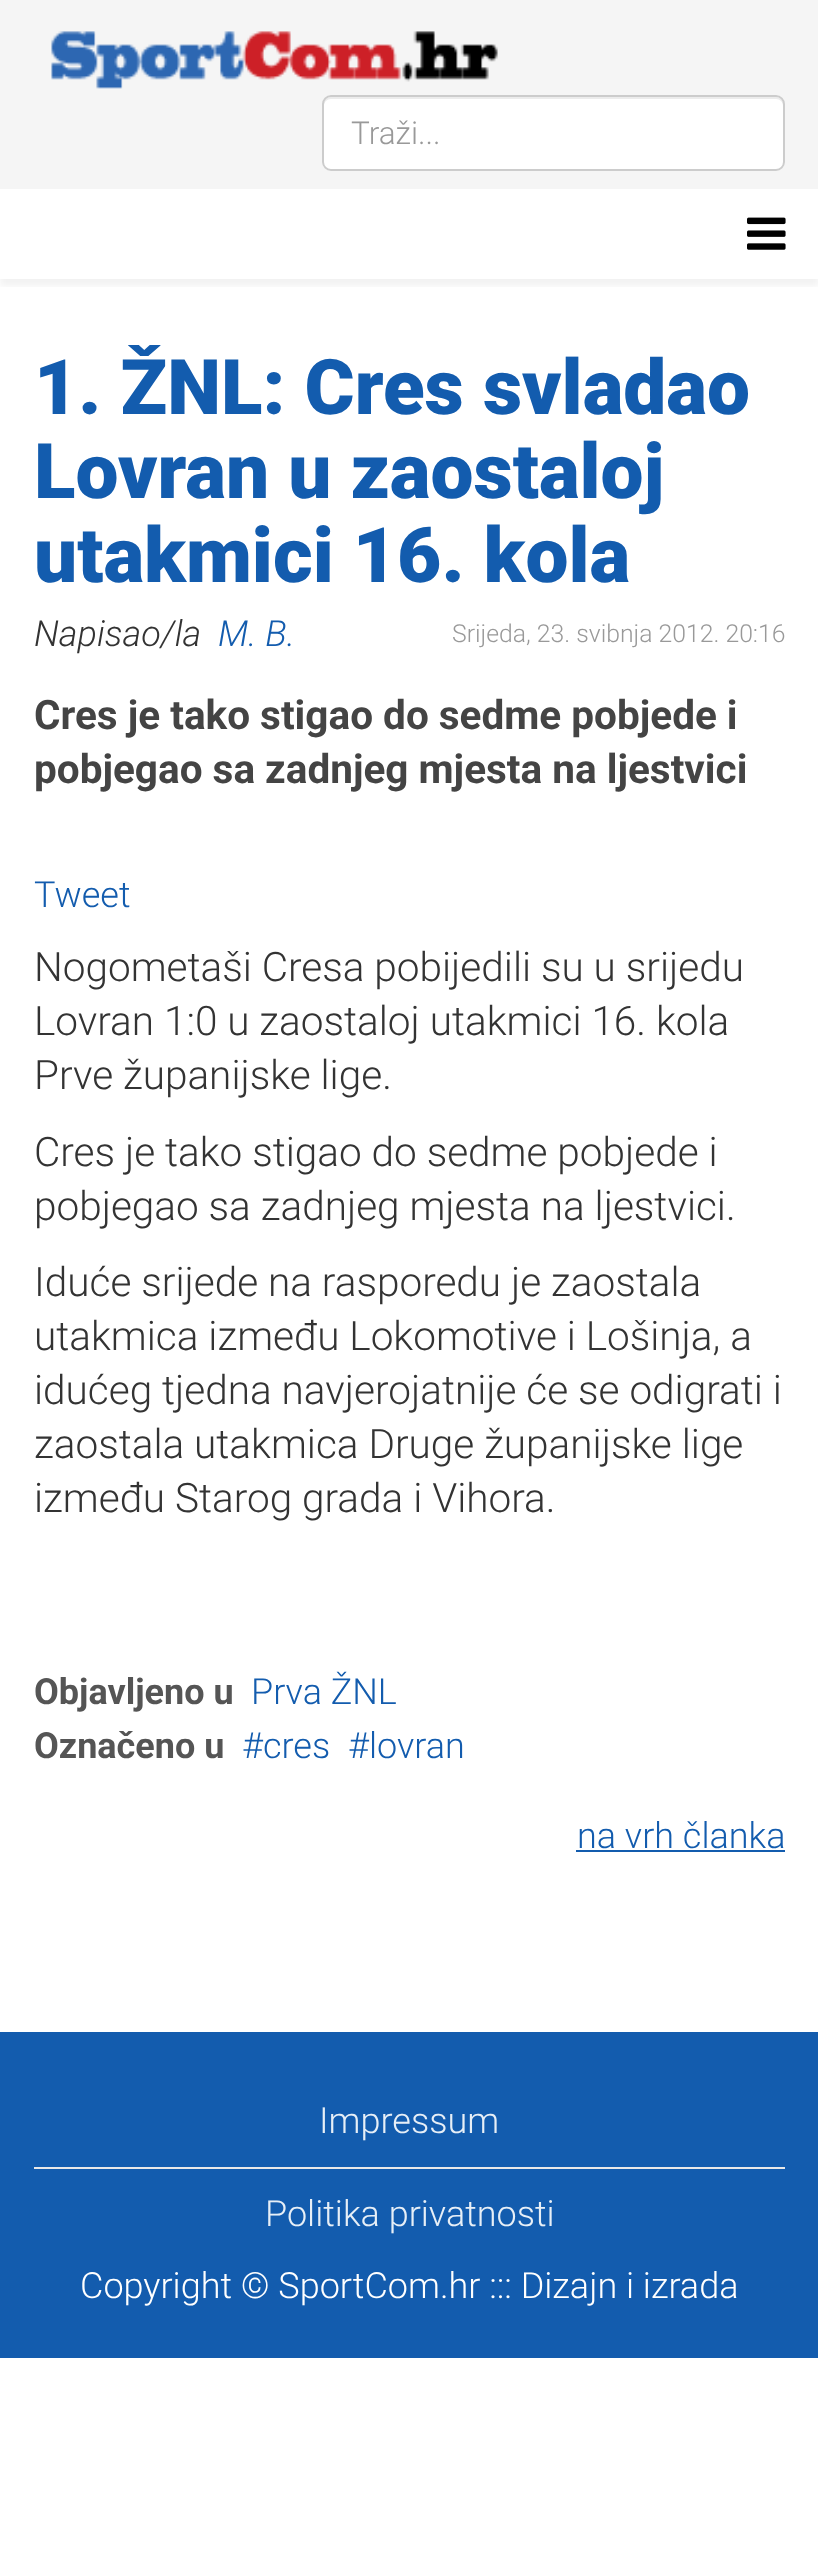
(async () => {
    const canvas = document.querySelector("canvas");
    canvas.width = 818;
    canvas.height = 2549;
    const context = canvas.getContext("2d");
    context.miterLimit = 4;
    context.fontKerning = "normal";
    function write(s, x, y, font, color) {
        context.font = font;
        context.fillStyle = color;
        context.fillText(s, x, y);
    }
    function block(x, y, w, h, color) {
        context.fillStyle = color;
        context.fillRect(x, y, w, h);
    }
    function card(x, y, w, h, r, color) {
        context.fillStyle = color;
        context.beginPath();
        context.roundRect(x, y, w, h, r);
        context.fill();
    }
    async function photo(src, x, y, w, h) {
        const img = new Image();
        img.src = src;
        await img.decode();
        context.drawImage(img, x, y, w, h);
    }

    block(0, 0, 818, 2549, "rgb(255, 255, 255)");
    block(0, 0, 818, 189, "rgb(245, 245, 245)");
    await photo("media/1.png", 51, 31, 447, 58);
    card(322, 95, 463, 76, 9, "rgb(255, 255, 255)");
    context.fillStyle = "rgb(236, 236, 236)";
    context.beginPath();
    context.moveTo(331, 99);
    context.lineTo(776, 99);
    context.bezierCurveTo(780, 99, 783, 102, 783, 106);
    context.lineTo(783, 104);
    context.bezierCurveTo(783, 100, 780, 97, 776, 97);
    context.lineTo(331, 97);
    context.bezierCurveTo(327, 97, 324, 100, 324, 104);
    context.lineTo(324, 106);
    context.bezierCurveTo(324, 102, 327, 99, 331, 99);
    context.closePath();
    context.fill();
    context.beginPath();
    context.roundRect(323, 96, 461, 74, 8);
    context.strokeStyle = "rgb(204, 204, 204)";
    context.lineWidth = 2;
    context.stroke();
    write("Traži...", 351, 144, "300 31.5px Roboto", "rgb(153, 153, 153)");
    context.save();
    context.beginPath();
    context.rect(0, 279, 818, 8);
    context.clip();
    context.fillStyle = "rgba(0, 0, 0, 0.05)";
    context.filter = "blur(3.5px)";
    context.beginPath();
    context.rect(0, 196, 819, 90);
    context.fill();
    context.filter = "none";
    context.restore();
    await photo("media/2.png", 747, 217, 39, 33);
    write("1. ŽNL: Cres svladao", 34, 414, "900 76.5px Roboto", "rgb(19, 92, 174)");
    write("Lovran u zaostaloj", 34, 498, "900 76.5px Roboto", "rgb(19, 92, 174)");
    write("utakmici 16. kola", 34, 582, "900 76.5px Roboto", "rgb(19, 92, 174)");
    write("Napisao/la", 34, 646, "italic 300 36px Roboto", "rgb(51, 51, 51)");
    write("M. B.", 218, 646, "italic 300 36px Roboto", "rgb(19, 92, 174)");
    write("Srijeda, 23. svibnja 2012. 20:16", 452, 642, "300 24.75px Roboto", "rgb(153, 153, 153)");
    write("Cres je tako stigao do sedme pobjede i", 34, 729, "bold 40.5px Roboto", "rgb(68, 68, 68)");
    write("pobjegao sa zadnjeg mjesta na ljestvici", 34, 783, "bold 40.5px Roboto", "rgb(68, 68, 68)");
    write("Tweet", 34, 907, "300 36px Roboto", "rgb(19, 92, 174)");
    write("Nogometaši Cresa pobijedili su u srijedu", 34, 981, "300 40.5px Roboto", "rgb(51, 51, 51)");
    write("Lovran 1:0 u zaostaloj utakmici 16. kola", 34, 1035, "300 40.5px Roboto", "rgb(51, 51, 51)");
    write("Prve županijske lige.", 34, 1089, "300 40.5px Roboto", "rgb(51, 51, 51)");
    write("Cres je tako stigao do sedme pobjede i", 34, 1166, "300 40.5px Roboto", "rgb(51, 51, 51)");
    write("pobjegao sa zadnjeg mjesta na ljestvici.", 34, 1220, "300 40.5px Roboto", "rgb(51, 51, 51)");
    write("Iduće srijede na rasporedu je zaostala", 34, 1296, "300 40.5px Roboto", "rgb(51, 51, 51)");
    write("utakmica između Lokomotive i Lošinja, a", 34, 1350, "300 40.5px Roboto", "rgb(51, 51, 51)");
    write("idućeg tjedna navjerojatnije će se odigrati i", 34, 1404, "300 40.5px Roboto", "rgb(51, 51, 51)");
    write("zaostala utakmica Druge županijske lige", 34, 1458, "300 40.5px Roboto", "rgb(51, 51, 51)");
    write("između Starog grada i Vihora.", 34, 1512, "300 40.5px Roboto", "rgb(51, 51, 51)");
    write("Objavljeno u", 34, 1704, "bold 36px Roboto", "rgb(85, 85, 85)");
    write("Prva ŽNL", 251, 1704, "300 36px Roboto", "rgb(19, 92, 174)");
    write("Označeno u", 34, 1758, "bold 36px Roboto", "rgb(85, 85, 85)");
    write("#cres", 242, 1758, "300 36px Roboto", "rgb(19, 92, 174)");
    write("#lovran", 348, 1758, "300 36px Roboto", "rgb(19, 92, 174)");
    write("na vrh članka", 577, 1848, "300 36px Roboto", "rgb(19, 92, 174)");
    block(576, 1850, 209, 2, "rgb(19, 92, 174)");
    block(0, 2032, 818, 326, "rgb(19, 92, 174)");
    block(34, 2167, 751, 2, "rgb(232, 232, 232)");
    write("Impressum", 319, 2133, "300 36px Roboto", "rgb(231, 239, 247)");
    write("Politika privatnosti", 265, 2226, "300 36px Roboto", "rgb(231, 239, 247)");
    write("Copyright © SportCom.hr ::: Dizajn i izrada", 80, 2298, "300 36px Roboto", "rgb(255, 255, 255)");
})();
